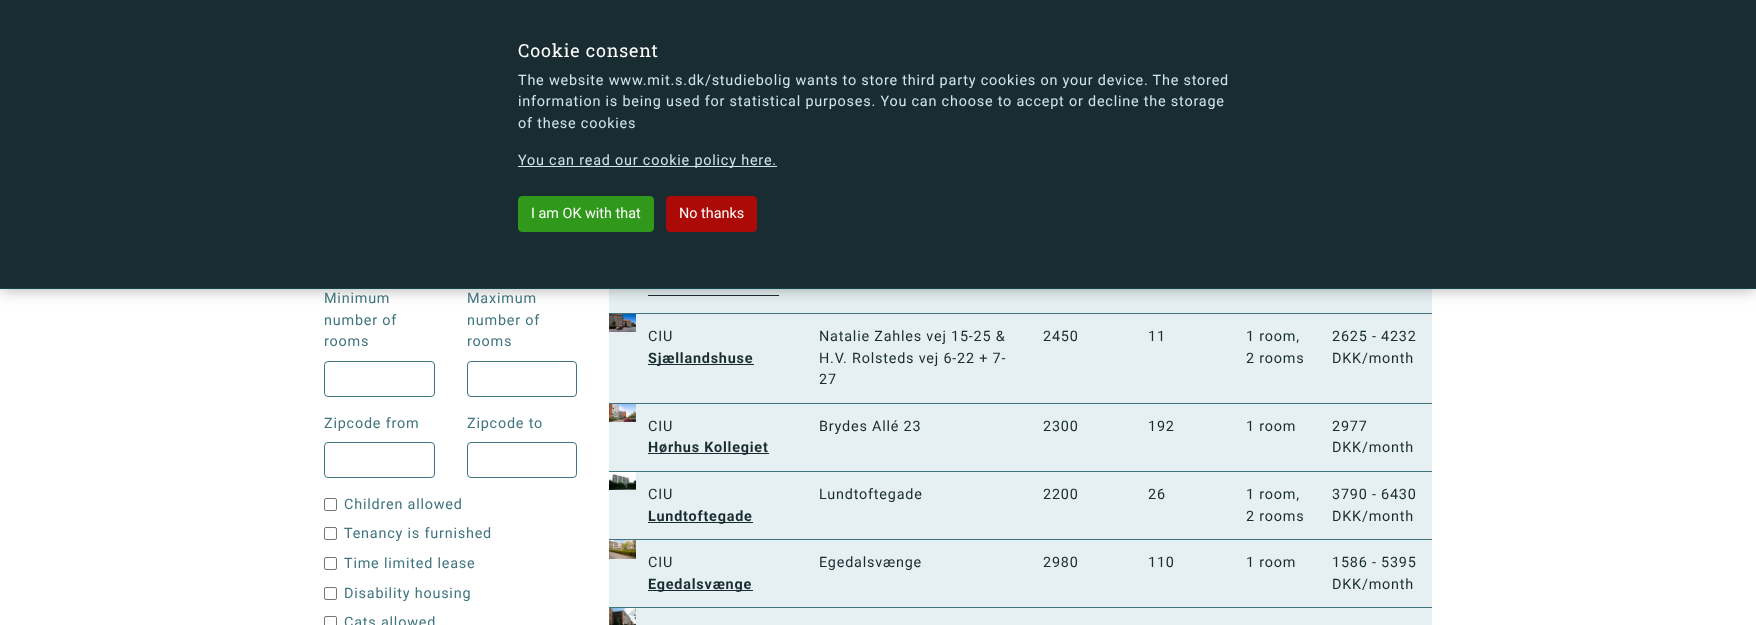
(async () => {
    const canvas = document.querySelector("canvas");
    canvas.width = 1756;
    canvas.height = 625;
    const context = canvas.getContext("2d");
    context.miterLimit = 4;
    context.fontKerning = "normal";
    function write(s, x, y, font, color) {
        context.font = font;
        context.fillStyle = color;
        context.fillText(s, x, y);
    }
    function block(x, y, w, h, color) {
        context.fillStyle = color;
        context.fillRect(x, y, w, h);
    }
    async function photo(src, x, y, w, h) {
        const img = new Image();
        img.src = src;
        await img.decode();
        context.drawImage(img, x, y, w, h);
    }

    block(0, 0, 1756, 625, "rgb(255, 255, 255)");
    block(609, 289, 823, 336, "rgb(230, 240, 242)");
    block(648, 295, 131, 1, "rgb(24, 44, 49)");
    block(609, 313, 823, 1, "rgb(64, 116, 127)");
    context.fillStyle = "rgba(0, 0, 0, 0.33)";
    context.filter = "blur(8px)";
    context.beginPath();
    context.rect(0, 0, 1756, 289);
    context.fill();
    context.filter = "none";
    block(0, 0, 1756, 288, "rgb(24, 44, 49)");
    block(0, 288, 1756, 1, "rgb(16, 66, 76)");
    context.letterSpacing = "0.8px";
    write("Cookie consent", 518, 57, "18px Roboto Slab", "rgb(255, 255, 255)");
    write("The website www.mit.s.dk/studiebolig wants to store third party cookies on your device. The stored", 518, 85, "14.4px Roboto", "rgb(206, 230, 236)");
    write("information is being used for statistical purposes. You can choose to accept or decline the storage", 518, 106, "14.4px Roboto", "rgb(206, 230, 236)");
    write("of these cookies", 518, 128, "14.4px Roboto", "rgb(206, 230, 236)");
    block(518, 166, 259, 1, "rgb(206, 230, 236)");
    write("You can read our cookie policy here.", 518, 165, "14.4px Roboto", "rgb(206, 230, 236)");
    context.fillStyle = "rgb(48, 152, 27)";
    context.beginPath();
    context.roundRect(518.5, 196.5, 135, 35, 3.5);
    context.fill();
    context.strokeStyle = "rgb(48, 152, 27)";
    context.stroke();
    context.letterSpacing = "0px";
    write("I am OK with that", 531, 218, "14.4px Roboto", "rgb(255, 255, 255)");
    context.fillStyle = "rgb(171, 10, 7)";
    context.beginPath();
    context.roundRect(666.5, 196.5, 90, 35, 3.5);
    context.fill();
    context.strokeStyle = "rgb(171, 10, 7)";
    context.stroke();
    write("No thanks", 679, 218, "14.4px Roboto", "rgb(255, 255, 255)");
    context.letterSpacing = "0.8px";
    write("Minimum", 324, 303, "14.4px Roboto", "rgb(64, 116, 127)");
    write("number of", 324, 325, "14.4px Roboto", "rgb(64, 116, 127)");
    write("rooms", 324, 346, "14.4px Roboto", "rgb(64, 116, 127)");
    context.beginPath();
    context.roundRect(324.5, 361.5, 110, 35, 3.5);
    context.strokeStyle = "rgb(64, 116, 127)";
    context.stroke();
    write("Maximum", 467, 303, "14.4px Roboto", "rgb(64, 116, 127)");
    write("number of", 467, 325, "14.4px Roboto", "rgb(64, 116, 127)");
    write("rooms", 467, 346, "14.4px Roboto", "rgb(64, 116, 127)");
    context.beginPath();
    context.roundRect(467.5, 361.5, 109, 35, 3.5);
    context.stroke();
    write("Zipcode from", 324, 428, "14.4px Roboto", "rgb(64, 116, 127)");
    write("Zipcode to", 467, 428, "14.4px Roboto", "rgb(64, 116, 127)");
    context.beginPath();
    context.roundRect(324.5, 442.5, 110, 35, 3.5);
    context.stroke();
    context.beginPath();
    context.roundRect(467.5, 442.5, 109, 35, 3.5);
    context.stroke();
    context.beginPath();
    context.roundRect(324.5, 498.5, 12, 12, 1.5);
    context.strokeStyle = "rgb(118, 118, 118)";
    context.stroke();
    write("Children allowed", 344, 509, "14.4px Roboto", "rgb(64, 116, 127)");
    context.beginPath();
    context.roundRect(324.5, 527.5, 12, 12, 1.5);
    context.stroke();
    write("Tenancy is furnished", 344, 538, "14.4px Roboto", "rgb(64, 116, 127)");
    context.beginPath();
    context.roundRect(324.5, 557.5, 12, 12, 1.5);
    context.stroke();
    write("Time limited lease", 344, 568, "14.4px Roboto", "rgb(64, 116, 127)");
    context.beginPath();
    context.roundRect(324.5, 587.5, 12, 12, 1.5);
    context.stroke();
    write("Disability housing", 344, 598, "14.4px Roboto", "rgb(64, 116, 127)");
    context.beginPath();
    context.roundRect(324.5, 616.5, 12, 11, 1.5);
    context.stroke();
    write("Cats allowed", 344, 627, "14.4px Roboto", "rgb(64, 116, 127)");
    await photo("media/1.png", 609, 314, 27, 18);
    write("CIU", 648, 341, "14.4px Roboto", "rgb(24, 44, 49)");
    block(648, 364, 106, 1, "rgb(24, 44, 49)");
    write("Sjællandshuse", 648, 363, "bold 14.4px Roboto", "rgb(24, 44, 49)");
    write("Natalie Zahles vej 15-25 &", 819, 341, "14.4px Roboto", "rgb(24, 44, 49)");
    write("H.V. Rolsteds vej 6-22 + 7-", 819, 363, "14.4px Roboto", "rgb(24, 44, 49)");
    write("27", 819, 384, "14.4px Roboto", "rgb(24, 44, 49)");
    write("2450", 1043, 341, "14.4px Roboto", "rgb(24, 44, 49)");
    write("11", 1148, 341, "14.4px Roboto", "rgb(24, 44, 49)");
    write("1 room,", 1246, 341, "14.4px Roboto", "rgb(24, 44, 49)");
    write("2 rooms", 1246, 363, "14.4px Roboto", "rgb(24, 44, 49)");
    write("2625 - 4232", 1332, 341, "14.4px Roboto", "rgb(24, 44, 49)");
    write("DKK/month", 1332, 363, "14.4px Roboto", "rgb(24, 44, 49)");
    await photo("media/2.png", 609, 404, 27, 18);
    write("CIU", 648, 431, "14.4px Roboto", "rgb(24, 44, 49)");
    block(648, 453, 121, 1, "rgb(24, 44, 49)");
    write("Hørhus Kollegiet", 648, 452, "bold 14.4px Roboto", "rgb(24, 44, 49)");
    write("Brydes Allé 23", 819, 431, "14.4px Roboto", "rgb(24, 44, 49)");
    write("2300", 1043, 431, "14.4px Roboto", "rgb(24, 44, 49)");
    write("192", 1148, 431, "14.4px Roboto", "rgb(24, 44, 49)");
    write("1 room", 1246, 431, "14.4px Roboto", "rgb(24, 44, 49)");
    block(609, 403, 823, 1, "rgb(64, 116, 127)");
    write("2977", 1332, 431, "14.4px Roboto", "rgb(24, 44, 49)");
    write("DKK/month", 1332, 452, "14.4px Roboto", "rgb(24, 44, 49)");
    await photo("media/3.png", 609, 472, 27, 18);
    write("CIU", 648, 499, "14.4px Roboto", "rgb(24, 44, 49)");
    block(648, 522, 105, 1, "rgb(24, 44, 49)");
    write("Lundtoftegade", 648, 521, "bold 14.4px Roboto", "rgb(24, 44, 49)");
    write("Lundtoftegade", 819, 499, "14.4px Roboto", "rgb(24, 44, 49)");
    write("2200", 1043, 499, "14.4px Roboto", "rgb(24, 44, 49)");
    write("26", 1148, 499, "14.4px Roboto", "rgb(24, 44, 49)");
    write("1 room,", 1246, 499, "14.4px Roboto", "rgb(24, 44, 49)");
    write("2 rooms", 1246, 521, "14.4px Roboto", "rgb(24, 44, 49)");
    block(609, 471, 823, 1, "rgb(64, 116, 127)");
    write("3790 - 6430", 1332, 499, "14.4px Roboto", "rgb(24, 44, 49)");
    write("DKK/month", 1332, 521, "14.4px Roboto", "rgb(24, 44, 49)");
    await photo("media/4.png", 609, 540, 27, 19);
    write("CIU", 648, 567, "14.4px Roboto", "rgb(24, 44, 49)");
    block(648, 590, 105, 1, "rgb(24, 44, 49)");
    write("Egedalsvænge", 648, 589, "bold 14.4px Roboto", "rgb(24, 44, 49)");
    write("Egedalsvænge", 819, 567, "14.4px Roboto", "rgb(24, 44, 49)");
    write("2980", 1043, 567, "14.4px Roboto", "rgb(24, 44, 49)");
    write("110", 1148, 567, "14.4px Roboto", "rgb(24, 44, 49)");
    write("1 room", 1246, 567, "14.4px Roboto", "rgb(24, 44, 49)");
    block(609, 539, 823, 1, "rgb(64, 116, 127)");
    write("1586 - 5395", 1332, 567, "14.4px Roboto", "rgb(24, 44, 49)");
    write("DKK/month", 1332, 589, "14.4px Roboto", "rgb(24, 44, 49)");
    block(609, 607, 823, 1, "rgb(64, 116, 127)");
    await photo("media/5.png", 609, 608, 27, 17);
})();
